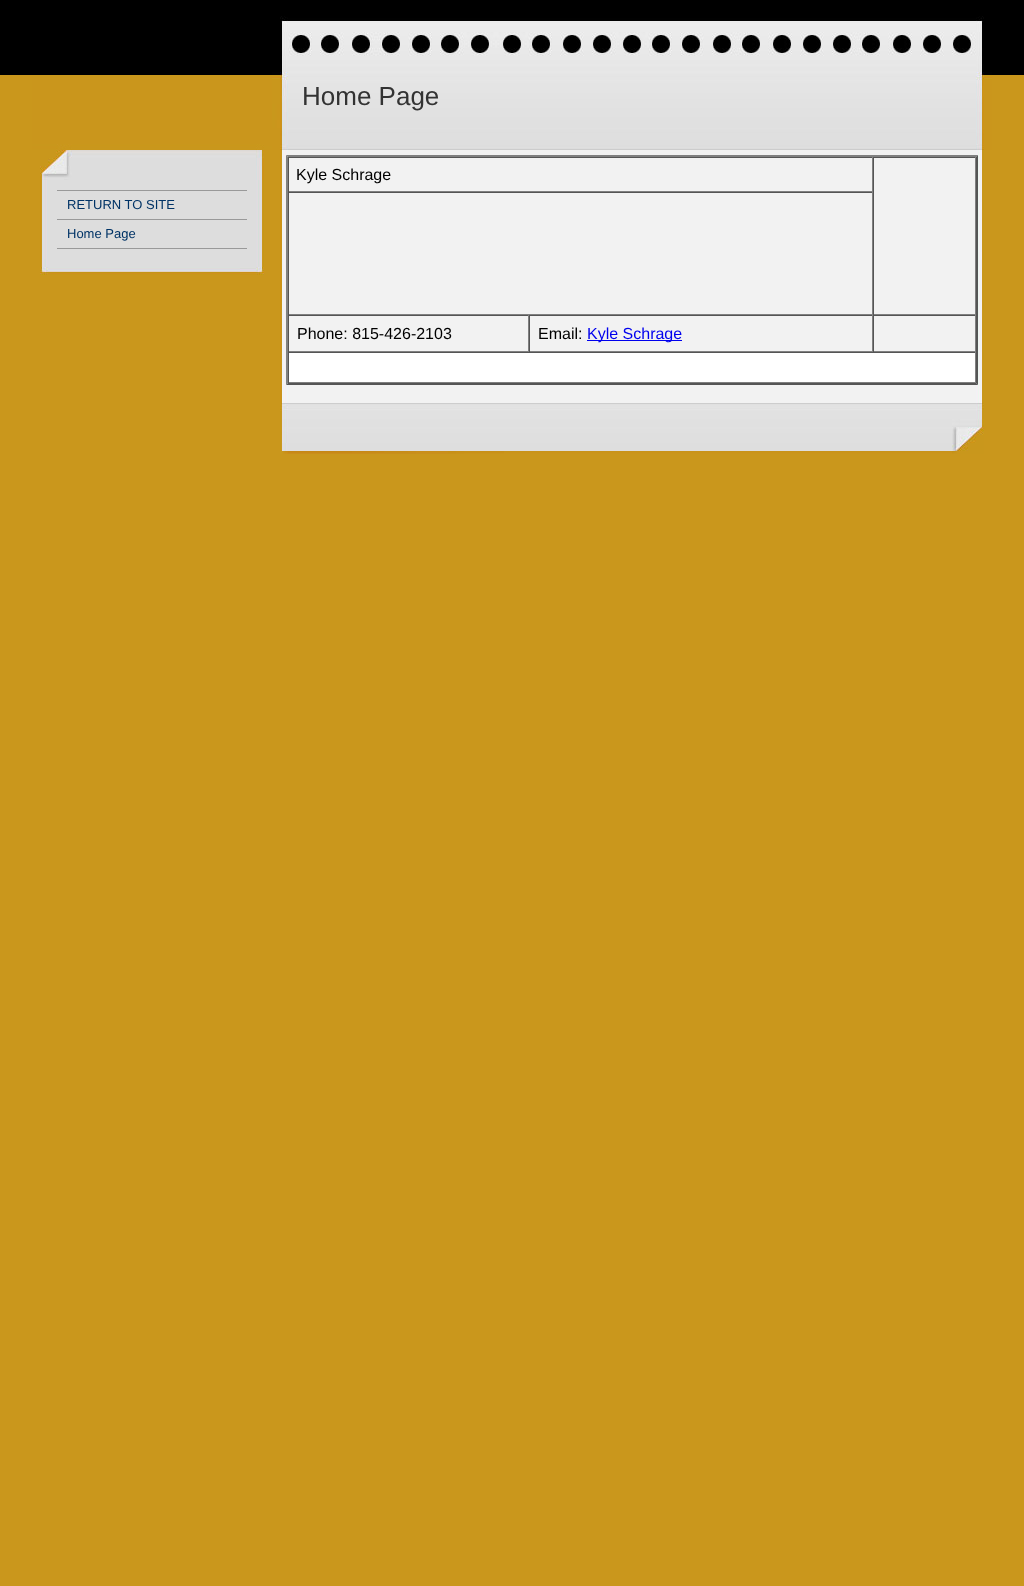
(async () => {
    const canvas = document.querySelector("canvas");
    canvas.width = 1024;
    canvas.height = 1586;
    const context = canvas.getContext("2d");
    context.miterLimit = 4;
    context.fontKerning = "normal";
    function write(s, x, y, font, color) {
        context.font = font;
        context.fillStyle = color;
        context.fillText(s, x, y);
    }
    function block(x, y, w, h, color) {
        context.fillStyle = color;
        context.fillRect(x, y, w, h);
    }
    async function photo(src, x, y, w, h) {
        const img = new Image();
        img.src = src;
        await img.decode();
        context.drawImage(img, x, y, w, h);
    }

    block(0, 0, 1024, 1586, "rgb(202, 151, 28)");
    block(0, 0, 1024, 75, "rgb(0, 0, 0)");
    await photo("media/1.png", 32, 0, 960, 150);
    write("Home Page", 302, 105, "26px Liberation Sans", "rgb(51, 51, 51)");
    await photo("media/2.png", 280, 150, 704, 253);
    await photo("media/3.png", 40, 150, 224, 30);
    await photo("media/4.png", 40, 259, 224, 16);
    await photo("media/5.png", 40, 180, 224, 79);
    block(57, 190, 190, 1, "rgb(153, 153, 153)");
    block(57, 219, 190, 1, "rgb(153, 153, 153)");
    write("RETURN TO SITE", 67, 209, "13px Liberation Sans", "rgb(0, 51, 102)");
    block(57, 248, 190, 1, "rgb(153, 153, 153)");
    write("Home Page", 67, 238, "13px Liberation Sans", "rgb(0, 51, 102)");
    context.fillStyle = "rgb(128, 128, 128)";
    context.beginPath();
    context.moveTo(286, 155);
    context.lineTo(978, 155);
    context.lineTo(976, 157);
    context.lineTo(288, 157);
    context.closePath();
    context.fill();
    context.fillStyle = "rgb(85, 85, 85)";
    context.beginPath();
    context.moveTo(978, 155);
    context.lineTo(978, 385);
    context.lineTo(976, 383);
    context.lineTo(976, 157);
    context.closePath();
    context.fill();
    context.beginPath();
    context.moveTo(978, 385);
    context.lineTo(286, 385);
    context.lineTo(288, 383);
    context.lineTo(976, 383);
    context.closePath();
    context.fill();
    context.fillStyle = "rgb(128, 128, 128)";
    context.beginPath();
    context.moveTo(286, 385);
    context.lineTo(286, 155);
    context.lineTo(288, 157);
    context.lineTo(288, 383);
    context.closePath();
    context.fill();
    block(288, 157, 688, 1, "rgb(85, 85, 85)");
    block(872, 157, 1, 35, "rgb(128, 128, 128)");
    block(288, 191, 585, 1, "rgb(128, 128, 128)");
    block(288, 157, 1, 35, "rgb(85, 85, 85)");
    write("Kyle Schrage", 296, 180, "16px Liberation Sans", "rgb(0, 0, 0)");
    block(975, 157, 1, 158, "rgb(128, 128, 128)");
    block(873, 314, 103, 1, "rgb(128, 128, 128)");
    block(873, 157, 1, 158, "rgb(85, 85, 85)");
    block(288, 192, 585, 1, "rgb(85, 85, 85)");
    block(872, 192, 1, 123, "rgb(128, 128, 128)");
    block(288, 314, 585, 1, "rgb(128, 128, 128)");
    block(288, 192, 1, 123, "rgb(85, 85, 85)");
    block(288, 315, 688, 1, "rgb(85, 85, 85)");
    block(528, 315, 1, 37, "rgb(128, 128, 128)");
    block(288, 351, 241, 1, "rgb(128, 128, 128)");
    block(288, 315, 1, 37, "rgb(85, 85, 85)");
    write("Phone: 815-426-2103", 297, 339, "16px Liberation Sans", "rgb(0, 0, 0)");
    block(872, 315, 1, 37, "rgb(128, 128, 128)");
    block(529, 351, 344, 1, "rgb(128, 128, 128)");
    block(529, 315, 1, 37, "rgb(85, 85, 85)");
    write("Email:", 538, 339, "16px Liberation Sans", "rgb(0, 0, 0)");
    block(587, 340, 95, 1, "rgb(0, 0, 238)");
    write("Kyle Schrage", 587, 339, "16px Liberation Sans", "rgb(0, 0, 238)");
    block(975, 315, 1, 37, "rgb(128, 128, 128)");
    block(873, 351, 103, 1, "rgb(128, 128, 128)");
    block(873, 315, 1, 37, "rgb(85, 85, 85)");
    block(289, 353, 686, 29, "rgb(255, 255, 255)");
    block(288, 352, 688, 1, "rgb(85, 85, 85)");
    block(975, 352, 1, 31, "rgb(128, 128, 128)");
    block(288, 382, 688, 1, "rgb(128, 128, 128)");
    block(288, 352, 1, 31, "rgb(85, 85, 85)");
    await photo("media/6.png", 280, 403, 704, 51);
})();
